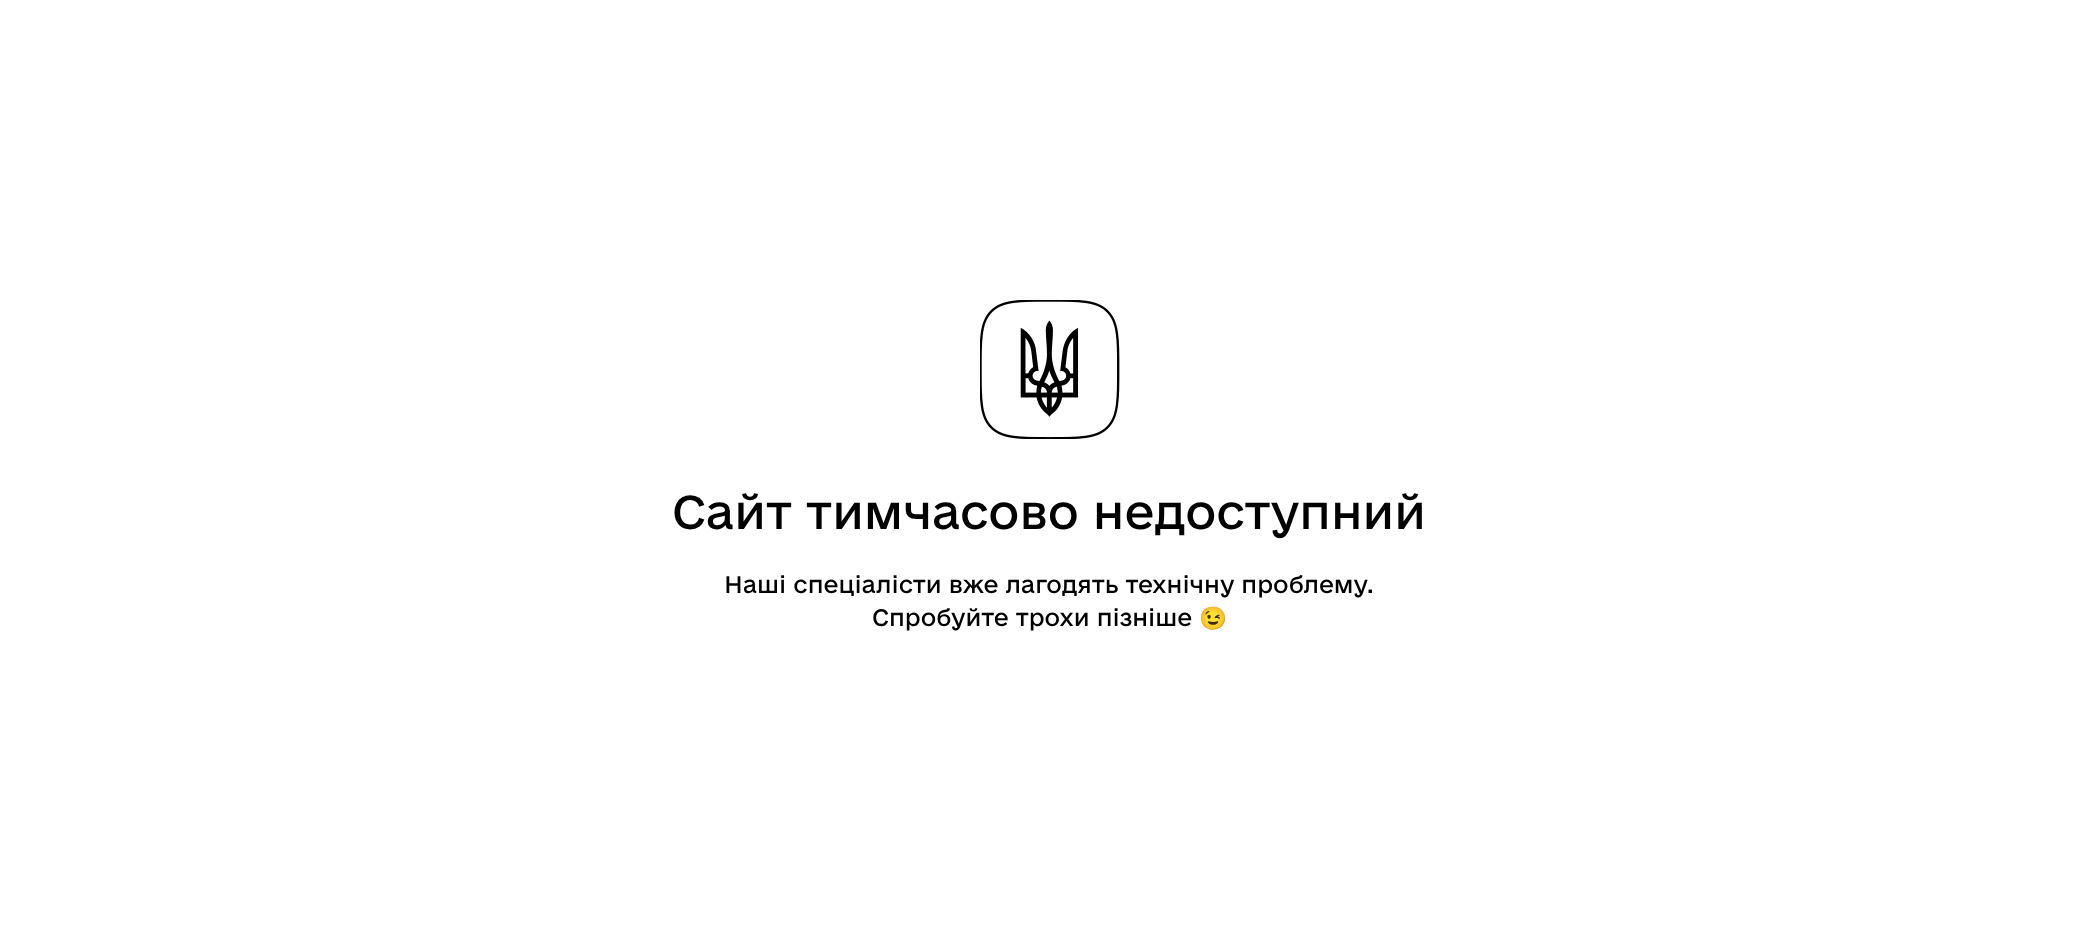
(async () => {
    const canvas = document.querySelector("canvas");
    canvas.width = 2098;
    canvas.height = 946;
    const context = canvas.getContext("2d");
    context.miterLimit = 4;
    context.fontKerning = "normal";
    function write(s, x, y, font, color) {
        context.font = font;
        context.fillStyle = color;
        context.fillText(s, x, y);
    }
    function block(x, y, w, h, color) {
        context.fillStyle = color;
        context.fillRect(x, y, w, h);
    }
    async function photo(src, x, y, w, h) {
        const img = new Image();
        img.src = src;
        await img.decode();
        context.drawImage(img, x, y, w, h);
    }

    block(0, 0, 2098, 946, "rgb(255, 255, 255)");
    await photo("media/1.png", 980, 300, 140, 139);
    write("Сайт тимчасово недоступний", 672, 529, "45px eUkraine", "rgb(0, 0, 0)");
    write("Наші спеціалісти вже лагодять технічну проблему.", 724, 593, "22.5px eUkraine", "rgb(0, 0, 0)");
    write("Спробуйте трохи пізніше", 872, 626, "22.5px eUkraine", "rgb(0, 0, 0)");
    write("😉", 1199, 626, "22.5px Noto Color Emoji", "rgb(0, 0, 0)");
})();
